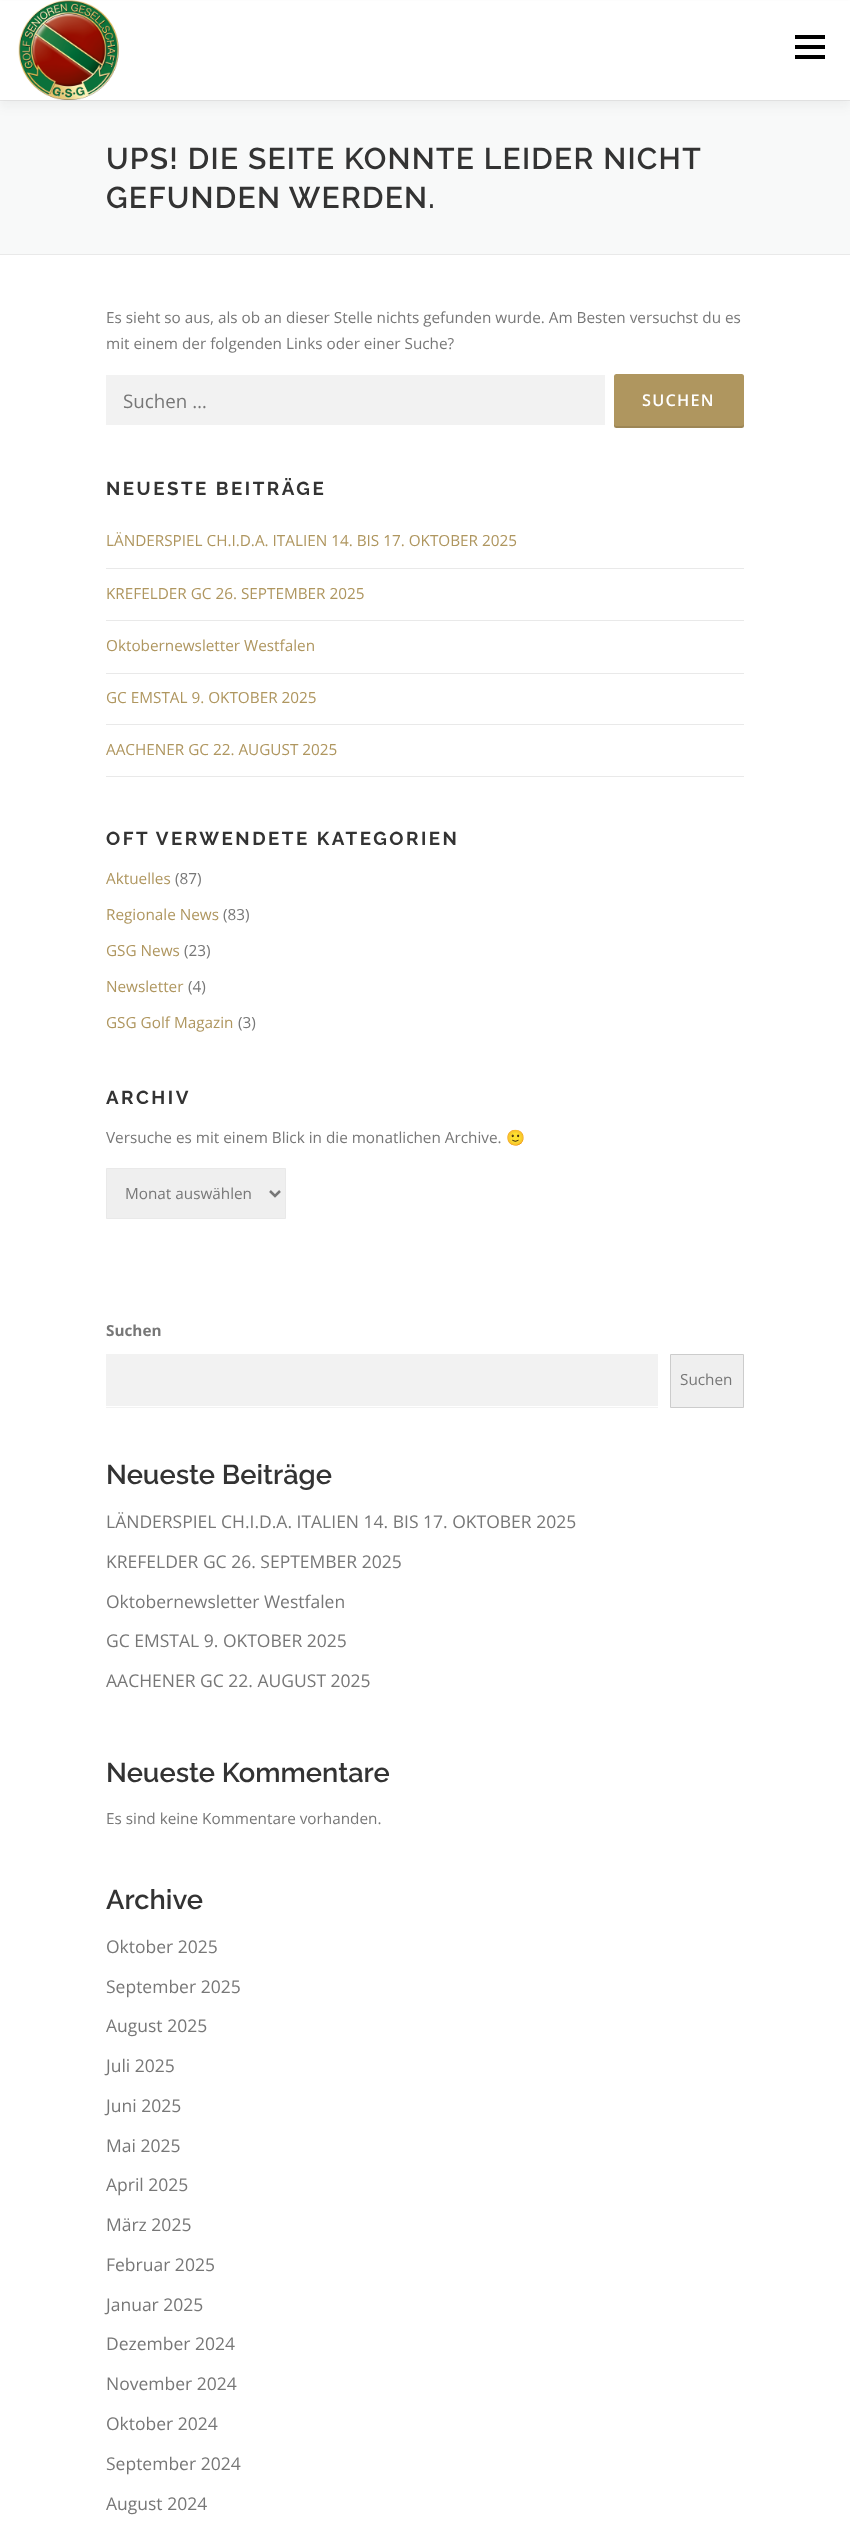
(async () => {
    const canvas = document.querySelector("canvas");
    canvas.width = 850;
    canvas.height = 2540;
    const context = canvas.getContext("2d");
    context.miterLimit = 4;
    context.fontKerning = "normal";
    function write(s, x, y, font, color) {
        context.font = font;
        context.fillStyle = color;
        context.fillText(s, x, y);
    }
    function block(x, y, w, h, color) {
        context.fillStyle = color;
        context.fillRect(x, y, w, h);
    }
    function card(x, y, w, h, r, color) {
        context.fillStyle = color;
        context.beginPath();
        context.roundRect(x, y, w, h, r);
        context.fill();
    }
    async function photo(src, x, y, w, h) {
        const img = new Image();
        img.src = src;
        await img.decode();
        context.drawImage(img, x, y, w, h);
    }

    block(0, 0, 850, 2540, "rgb(255, 255, 255)");
    block(0, 101, 850, 153, "rgb(248, 249, 249)");
    block(0, 100, 850, 1, "rgb(233, 233, 233)");
    context.fillStyle = "rgba(50, 50, 50, 0.06)";
    context.filter = "blur(6px)";
    context.beginPath();
    context.rect(0, 6, 850, 100);
    context.fill();
    context.filter = "none";
    block(0, 1, 850, 99, "rgb(255, 255, 255)");
    await photo("media/1.png", 18, 0, 101, 100);
    block(795, 45, 30, 4, "rgb(0, 0, 0)");
    block(795, 35, 30, 4, "rgb(0, 0, 0)");
    block(795, 55, 30, 4, "rgb(0, 0, 0)");
    block(0, 254, 850, 1, "rgb(233, 233, 233)");
    context.letterSpacing = "1.25px";
    write("UPS! DIE SEITE KONNTE LEIDER NICHT", 106, 169, "600 30px Raleway", "rgb(51, 51, 51)");
    write("GEFUNDEN WERDEN.", 106, 208, "600 30px Raleway", "rgb(51, 51, 51)");
    context.letterSpacing = "0px";
    write("Es sieht so aus, als ob an dieser Stelle nichts gefunden wurde. Am Besten versuchst du es", 106, 323, "15.3px Open Sans", "rgb(119, 119, 119)");
    write("mit einem der folgenden Links oder einer Suche?", 106, 349, "15.3px Open Sans", "rgb(119, 119, 119)");
    block(106, 375, 499, 50, "rgb(242, 242, 242)");
    write("Suchen …", 123, 408, "18.75px Open Sans", "rgb(119, 119, 119)");
    card(614, 374, 130, 54, 2.5, "rgb(175, 150, 95)");
    context.fillStyle = "rgba(0, 0, 0, 0.1)";
    context.beginPath();
    context.moveTo(614, 424);
    context.lineTo(614, 426);
    context.bezierCurveTo(614, 427, 615, 428, 616, 428);
    context.lineTo(742, 428);
    context.bezierCurveTo(743, 428, 744, 427, 744, 426);
    context.lineTo(744, 424);
    context.bezierCurveTo(744, 425, 743, 426, 741, 426);
    context.lineTo(616, 426);
    context.bezierCurveTo(615, 426, 614, 425, 614, 424);
    context.closePath();
    context.fill();
    context.letterSpacing = "1.25px";
    write("SUCHEN", 642, 406, "600 16.25px Open Sans", "rgb(255, 255, 255)");
    context.letterSpacing = "2.5px";
    write("NEUESTE BEITRÄGE", 106, 495, "bold 18.75px Raleway", "rgb(51, 51, 51)");
    block(106, 568, 638, 1, "rgb(233, 233, 233)");
    context.letterSpacing = "0px";
    write("LÄNDERSPIEL CH.I.D.A. ITALIEN 14. BIS 17. OKTOBER 2025", 106, 546, "15.3px Open Sans", "rgb(175, 150, 95)");
    block(106, 620, 638, 1, "rgb(233, 233, 233)");
    write("KREFELDER GC 26. SEPTEMBER 2025", 106, 599, "15.3px Open Sans", "rgb(175, 150, 95)");
    block(106, 673, 638, 1, "rgb(233, 233, 233)");
    write("Oktobernewsletter Westfalen", 106, 651, "15.3px Open Sans", "rgb(175, 150, 95)");
    block(106, 724, 638, 1, "rgb(233, 233, 233)");
    write("GC EMSTAL 9. OKTOBER 2025", 106, 703, "15.3px Open Sans", "rgb(175, 150, 95)");
    block(106, 776, 638, 1, "rgb(233, 233, 233)");
    write("AACHENER GC 22. AUGUST 2025", 106, 755, "15.3px Open Sans", "rgb(175, 150, 95)");
    context.letterSpacing = "2.5px";
    write("OFT VERWENDETE KATEGORIEN", 106, 845, "bold 18.75px Raleway", "rgb(51, 51, 51)");
    context.letterSpacing = "0px";
    write("Aktuelles", 106, 884, "15.3px Open Sans", "rgb(175, 150, 95)");
    write("(87)", 175, 884, "15.3px Open Sans", "rgb(119, 119, 119)");
    write("Regionale News", 106, 920, "15.3px Open Sans", "rgb(175, 150, 95)");
    write("(83)", 223, 920, "15.3px Open Sans", "rgb(119, 119, 119)");
    write("GSG News", 106, 956, "15.3px Open Sans", "rgb(175, 150, 95)");
    write("(23)", 184, 956, "15.3px Open Sans", "rgb(119, 119, 119)");
    write("Newsletter", 106, 992, "15.3px Open Sans", "rgb(175, 150, 95)");
    write("(4)", 188, 992, "15.3px Open Sans", "rgb(119, 119, 119)");
    write("GSG Golf Magazin", 106, 1028, "15.3px Open Sans", "rgb(175, 150, 95)");
    write("(3)", 238, 1028, "15.3px Open Sans", "rgb(119, 119, 119)");
    context.letterSpacing = "2.5px";
    write("ARCHIV", 106, 1104, "bold 18.75px Raleway", "rgb(51, 51, 51)");
    context.letterSpacing = "0px";
    write("Versuche es mit einem Blick in die monatlichen Archive.", 106, 1143, "15.3px Open Sans", "rgb(119, 119, 119)");
    write("🙂", 506, 1143, "15.3px Noto Color Emoji", "rgb(119, 119, 119)");
    context.fillStyle = "rgb(239, 239, 239)";
    context.beginPath();
    context.rect(106.5, 1168.5, 179, 50);
    context.fill();
    context.strokeStyle = "rgb(233, 233, 233)";
    context.stroke();
    context.beginPath();
    context.moveTo(270, 1191);
    context.lineTo(275, 1196);
    context.lineTo(280, 1191);
    context.strokeStyle = "rgb(119, 119, 119)";
    context.lineWidth = 2.5;
    context.stroke();
    write("Monat auswählen", 125, 1199, "15.3px Open Sans", "rgb(119, 119, 119)");
    write("Suchen", 106, 1336, "bold 15.3px Open Sans", "rgb(119, 119, 119)");
    block(106, 1354, 552, 54, "rgb(242, 242, 242)");
    block(106, 1406, 552, 1, "rgb(255, 255, 255)");
    context.fillStyle = "rgb(239, 239, 239)";
    context.beginPath();
    context.rect(670.5, 1354.5, 73, 53);
    context.fill();
    context.strokeStyle = "rgb(204, 204, 204)";
    context.lineWidth = 1;
    context.stroke();
    write("Suchen", 680, 1385, "15.3px Open Sans", "rgb(119, 119, 119)");
    write("Neueste Beiträge", 106, 1484, "600 27.25px Raleway", "rgb(51, 51, 51)");
    write("LÄNDERSPIEL CH.I.D.A. ITALIEN 14. BIS 17. OKTOBER 2025", 106, 1528, "17.5px Open Sans", "rgb(119, 119, 119)");
    write("KREFELDER GC 26. SEPTEMBER 2025", 106, 1568, "17.5px Open Sans", "rgb(119, 119, 119)");
    write("Oktobernewsletter Westfalen", 106, 1608, "17.5px Open Sans", "rgb(119, 119, 119)");
    write("GC EMSTAL 9. OKTOBER 2025", 106, 1647, "17.5px Open Sans", "rgb(119, 119, 119)");
    write("AACHENER GC 22. AUGUST 2025", 106, 1687, "17.5px Open Sans", "rgb(119, 119, 119)");
    write("Neueste Kommentare", 106, 1782, "600 27.25px Raleway", "rgb(51, 51, 51)");
    write("Es sind keine Kommentare vorhanden.", 106, 1824, "15.3px Open Sans", "rgb(119, 119, 119)");
    write("Archive", 106, 1909, "600 27.25px Raleway", "rgb(51, 51, 51)");
    write("Oktober 2025", 106, 1953, "17.5px Open Sans", "rgb(119, 119, 119)");
    write("September 2025", 106, 1993, "17.5px Open Sans", "rgb(119, 119, 119)");
    write("August 2025", 106, 2032, "17.5px Open Sans", "rgb(119, 119, 119)");
    write("Juli 2025", 106, 2072, "17.5px Open Sans", "rgb(119, 119, 119)");
    write("Juni 2025", 106, 2112, "17.5px Open Sans", "rgb(119, 119, 119)");
    write("Mai 2025", 106, 2152, "17.5px Open Sans", "rgb(119, 119, 119)");
    write("April 2025", 106, 2191, "17.5px Open Sans", "rgb(119, 119, 119)");
    write("März 2025", 106, 2231, "17.5px Open Sans", "rgb(119, 119, 119)");
    write("Februar 2025", 106, 2271, "17.5px Open Sans", "rgb(119, 119, 119)");
    write("Januar 2025", 106, 2311, "17.5px Open Sans", "rgb(119, 119, 119)");
    write("Dezember 2024", 106, 2350, "17.5px Open Sans", "rgb(119, 119, 119)");
    write("November 2024", 106, 2390, "17.5px Open Sans", "rgb(119, 119, 119)");
    write("Oktober 2024", 106, 2430, "17.5px Open Sans", "rgb(119, 119, 119)");
    write("September 2024", 106, 2470, "17.5px Open Sans", "rgb(119, 119, 119)");
    write("August 2024", 106, 2510, "17.5px Open Sans", "rgb(119, 119, 119)");
})();
